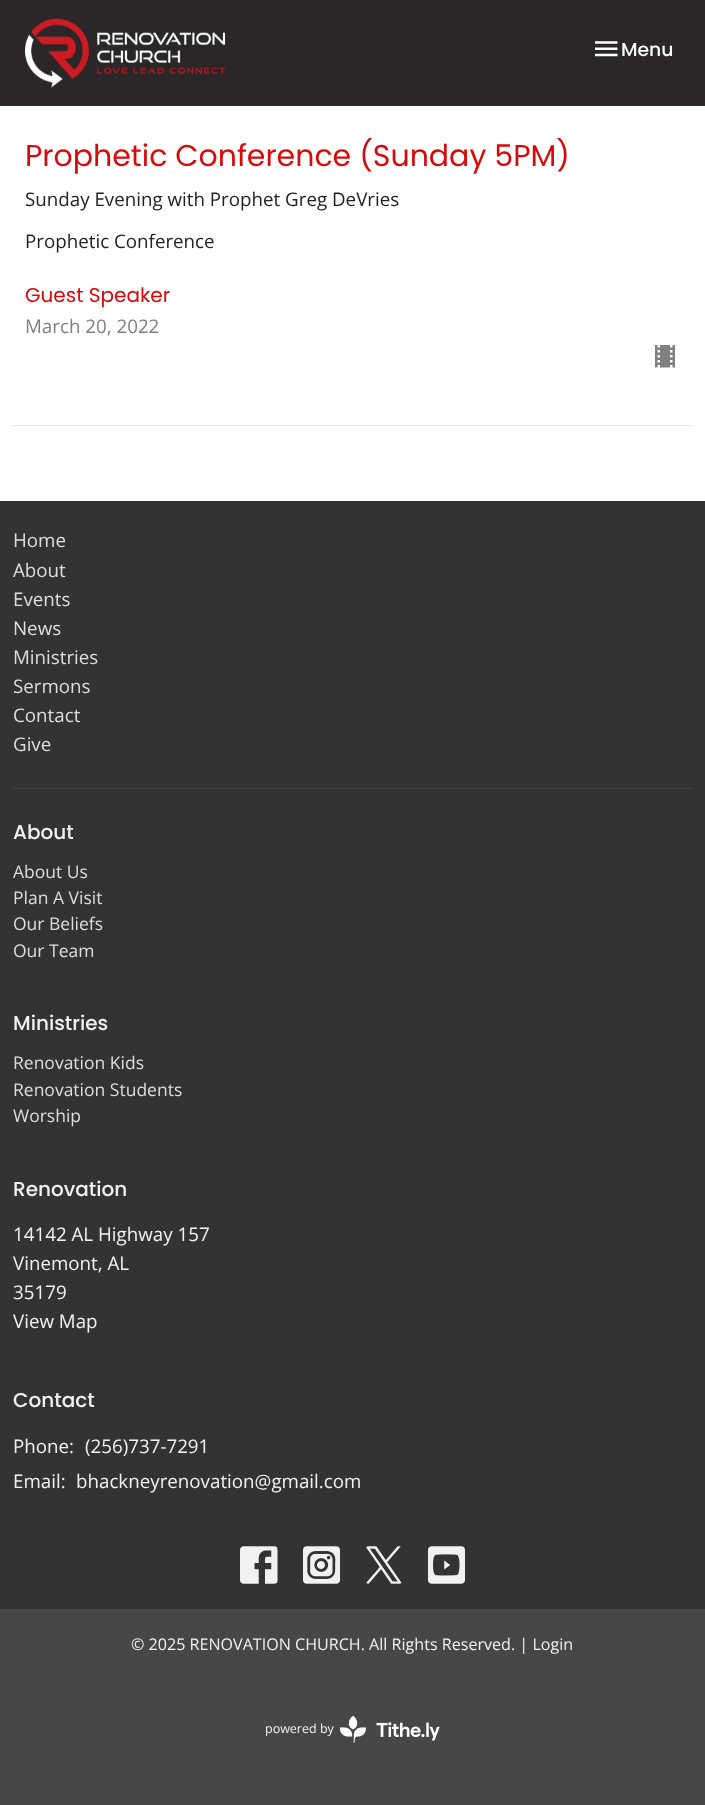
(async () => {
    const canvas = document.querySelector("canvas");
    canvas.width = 705;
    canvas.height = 1805;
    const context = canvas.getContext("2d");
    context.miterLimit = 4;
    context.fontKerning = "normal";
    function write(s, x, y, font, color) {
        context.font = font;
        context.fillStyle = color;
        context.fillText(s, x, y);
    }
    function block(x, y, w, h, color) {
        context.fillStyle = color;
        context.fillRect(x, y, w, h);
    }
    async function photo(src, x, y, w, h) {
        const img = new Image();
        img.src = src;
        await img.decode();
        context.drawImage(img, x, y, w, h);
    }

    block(0, 0, 705, 1805, "rgb(255, 255, 255)");
    block(0, 0, 705, 106, "rgb(43, 39, 41)");
    await photo("media/1.png", 25, 18, 200, 70);
    await photo("media/2.png", 595, 41, 23, 16);
    write("Menu", 621, 56, "500 18.75px Poppins", "rgb(255, 255, 255)");
    block(13, 425, 680, 1, "rgb(230, 230, 230)");
    write("Prophetic Conference (Sunday 5PM)", 25, 166, "30px Poppins", "rgb(216, 9, 9)");
    write("Sunday Evening with Prophet Greg DeVries", 25, 206, "18.75px Open Sans", "rgb(34, 34, 34)");
    write("Prophetic Conference", 25, 248, "18.75px Open Sans", "rgb(34, 34, 34)");
    write("Guest Speaker", 25, 302, "20px Poppins", "rgb(216, 9, 9)");
    write("March 20, 2022", 25, 333, "18.75px Open Sans", "rgb(128, 128, 128)");
    await photo("media/3.png", 655, 345, 20, 23);
    block(0, 501, 705, 1108, "rgb(51, 51, 51)");
    write("Home", 13, 547, "18.75px Open Sans", "rgb(222, 222, 222)");
    write("About", 13, 577, "18.75px Open Sans", "rgb(222, 222, 222)");
    write("Events", 13, 606, "18.75px Open Sans", "rgb(222, 222, 222)");
    write("News", 13, 635, "18.75px Open Sans", "rgb(222, 222, 222)");
    write("Ministries", 13, 664, "18.75px Open Sans", "rgb(222, 222, 222)");
    write("Sermons", 13, 693, "18.75px Open Sans", "rgb(222, 222, 222)");
    write("Contact", 13, 722, "18.75px Open Sans", "rgb(222, 222, 222)");
    write("Give", 13, 751, "18.75px Open Sans", "rgb(222, 222, 222)");
    block(13, 788, 680, 1, "rgb(66, 66, 66)");
    write("About", 13, 839, "500 20px Poppins", "rgb(241, 241, 241)");
    write("About Us", 13, 878, "17.5px Open Sans", "rgb(222, 222, 222)");
    write("Plan A Visit", 13, 904, "17.5px Open Sans", "rgb(222, 222, 222)");
    write("Our Beliefs", 13, 930, "17.5px Open Sans", "rgb(222, 222, 222)");
    write("Our Team", 13, 957, "17.5px Open Sans", "rgb(222, 222, 222)");
    write("Ministries", 13, 1030, "500 20px Poppins", "rgb(241, 241, 241)");
    write("Renovation Kids", 13, 1069, "17.5px Open Sans", "rgb(222, 222, 222)");
    write("Renovation Students", 13, 1096, "17.5px Open Sans", "rgb(222, 222, 222)");
    write("Worship", 13, 1122, "17.5px Open Sans", "rgb(222, 222, 222)");
    write("Renovation", 13, 1196, "500 20px Poppins", "rgb(241, 241, 241)");
    write("14142 AL Highway 157", 13, 1241, "18.75px Open Sans", "rgb(241, 241, 241)");
    write("Vinemont, AL", 13, 1270, "18.75px Open Sans", "rgb(241, 241, 241)");
    write("35179", 13, 1299, "18.75px Open Sans", "rgb(241, 241, 241)");
    write("View Map", 13, 1328, "18.75px Open Sans", "rgb(241, 241, 241)");
    write("Contact", 13, 1407, "500 20px Poppins", "rgb(241, 241, 241)");
    write("Phone:", 13, 1453, "18.75px Open Sans", "rgb(241, 241, 241)");
    write("(256)737-7291", 85, 1453, "18.75px Open Sans", "rgb(241, 241, 241)");
    write("Email:", 13, 1488, "18.75px Open Sans", "rgb(241, 241, 241)");
    write("bhackneyrenovation@gmail.com", 76, 1488, "18.75px Open Sans", "rgb(241, 241, 241)");
    await photo("media/4.png", 240, 1546, 38, 38);
    await photo("media/5.png", 303, 1546, 37, 38);
    await photo("media/6.png", 366, 1546, 36, 38);
    await photo("media/7.png", 428, 1546, 37, 38);
    block(0, 1609, 705, 196, "rgb(71, 71, 71)");
    write("© 2025 RENOVATION CHURCH. All Rights Reserved. | Login", 131, 1650, "16.1px Open Sans", "rgb(241, 241, 241)");
    write("powered by", 265, 1733, "12.5px Open Sans", "rgb(241, 241, 241)");
    await photo("media/8.png", 340, 1716, 100, 27);
})();
